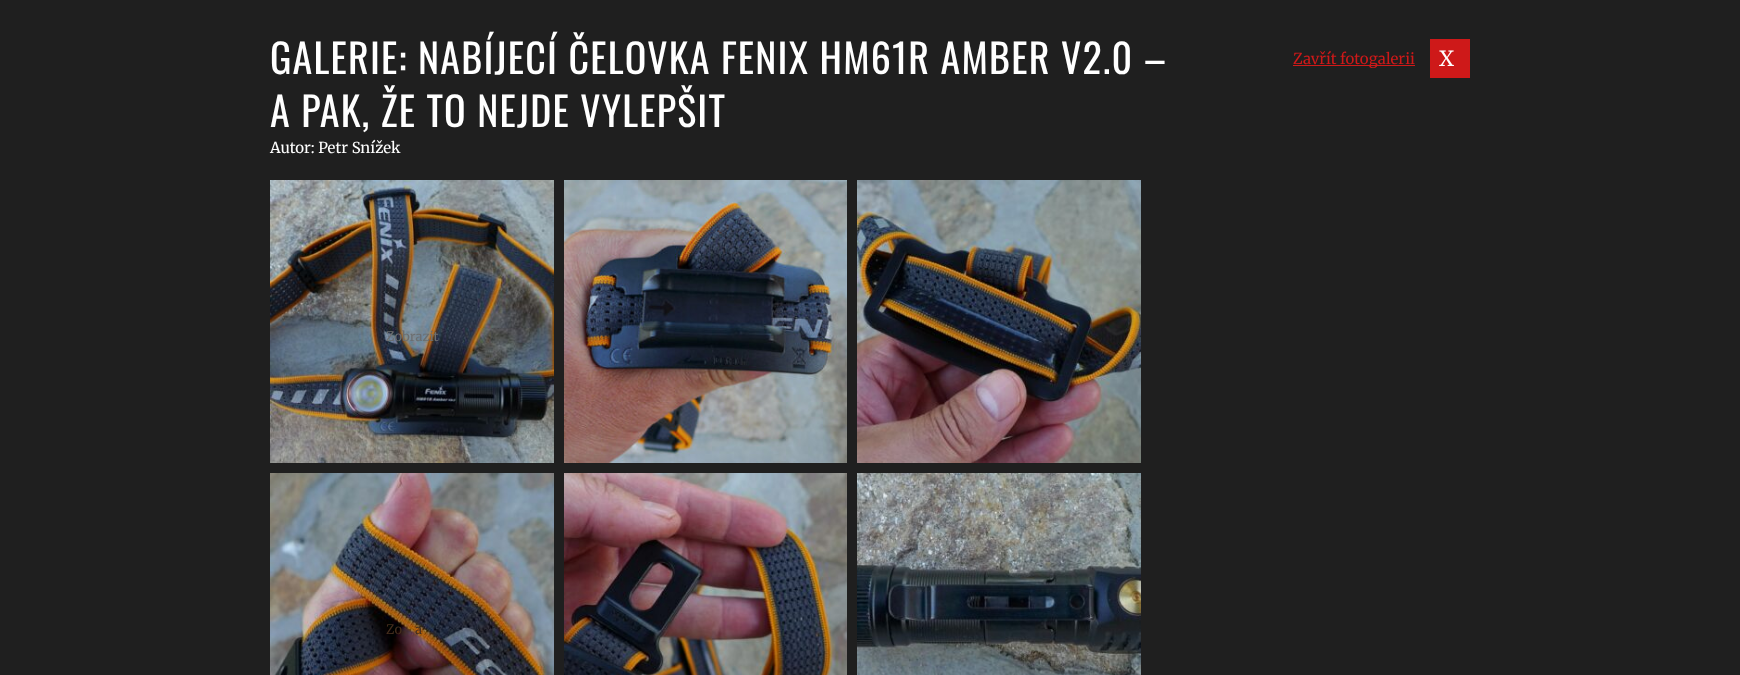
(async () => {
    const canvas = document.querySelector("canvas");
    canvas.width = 1740;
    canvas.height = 675;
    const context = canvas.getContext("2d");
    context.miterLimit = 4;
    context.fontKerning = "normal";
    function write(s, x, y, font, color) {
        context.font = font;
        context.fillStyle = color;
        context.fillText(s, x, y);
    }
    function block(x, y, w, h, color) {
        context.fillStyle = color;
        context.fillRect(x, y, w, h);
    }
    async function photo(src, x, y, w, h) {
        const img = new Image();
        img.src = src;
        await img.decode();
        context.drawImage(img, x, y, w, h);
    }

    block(0, 0, 1740, 675, "rgb(31, 31, 31)");
    context.letterSpacing = "1.2px";
    write("GALERIE: NABÍJECÍ ČELOVKA FENIX HM61R AMBER V2.0 –", 270, 74, "40px Oswald", "rgb(255, 255, 255)");
    write("A PAK, ŽE TO NEJDE VYLEPŠIT", 270, 127, "40px Oswald", "rgb(255, 255, 255)");
    context.letterSpacing = "0px";
    write("Autor: Petr Snížek", 270, 153, "15px Merriweather", "rgb(255, 255, 255)");
    block(1293, 65, 122, 1, "rgb(206, 25, 25)");
    write("Zavřít fotogalerii", 1293, 64, "15px Merriweather", "rgb(206, 25, 25)");
    block(1430, 39, 40, 39, "rgb(206, 25, 25)");
    context.letterSpacing = "6px";
    write("X", 1439, 66, "21px Merriweather", "rgb(255, 255, 255)");
    await photo("media/1.png", 270, 180, 284, 283);
    context.letterSpacing = "0px";
    write("Zobrazit", 386, 341, "13px Merriweather", "rgb(108, 110, 111)");
    await photo("media/2.png", 564, 180, 283, 283);
    await photo("media/3.png", 857, 180, 284, 283);
    await photo("media/4.png", 270, 473, 284, 202);
    write("Zo", 386, 634, "13px Merriweather", "rgb(67, 45, 29)");
    write("a", 415, 634, "13px Merriweather", "rgb(67, 45, 29)");
    await photo("media/5.png", 564, 473, 283, 202);
    await photo("media/6.png", 857, 473, 284, 202);
})();
